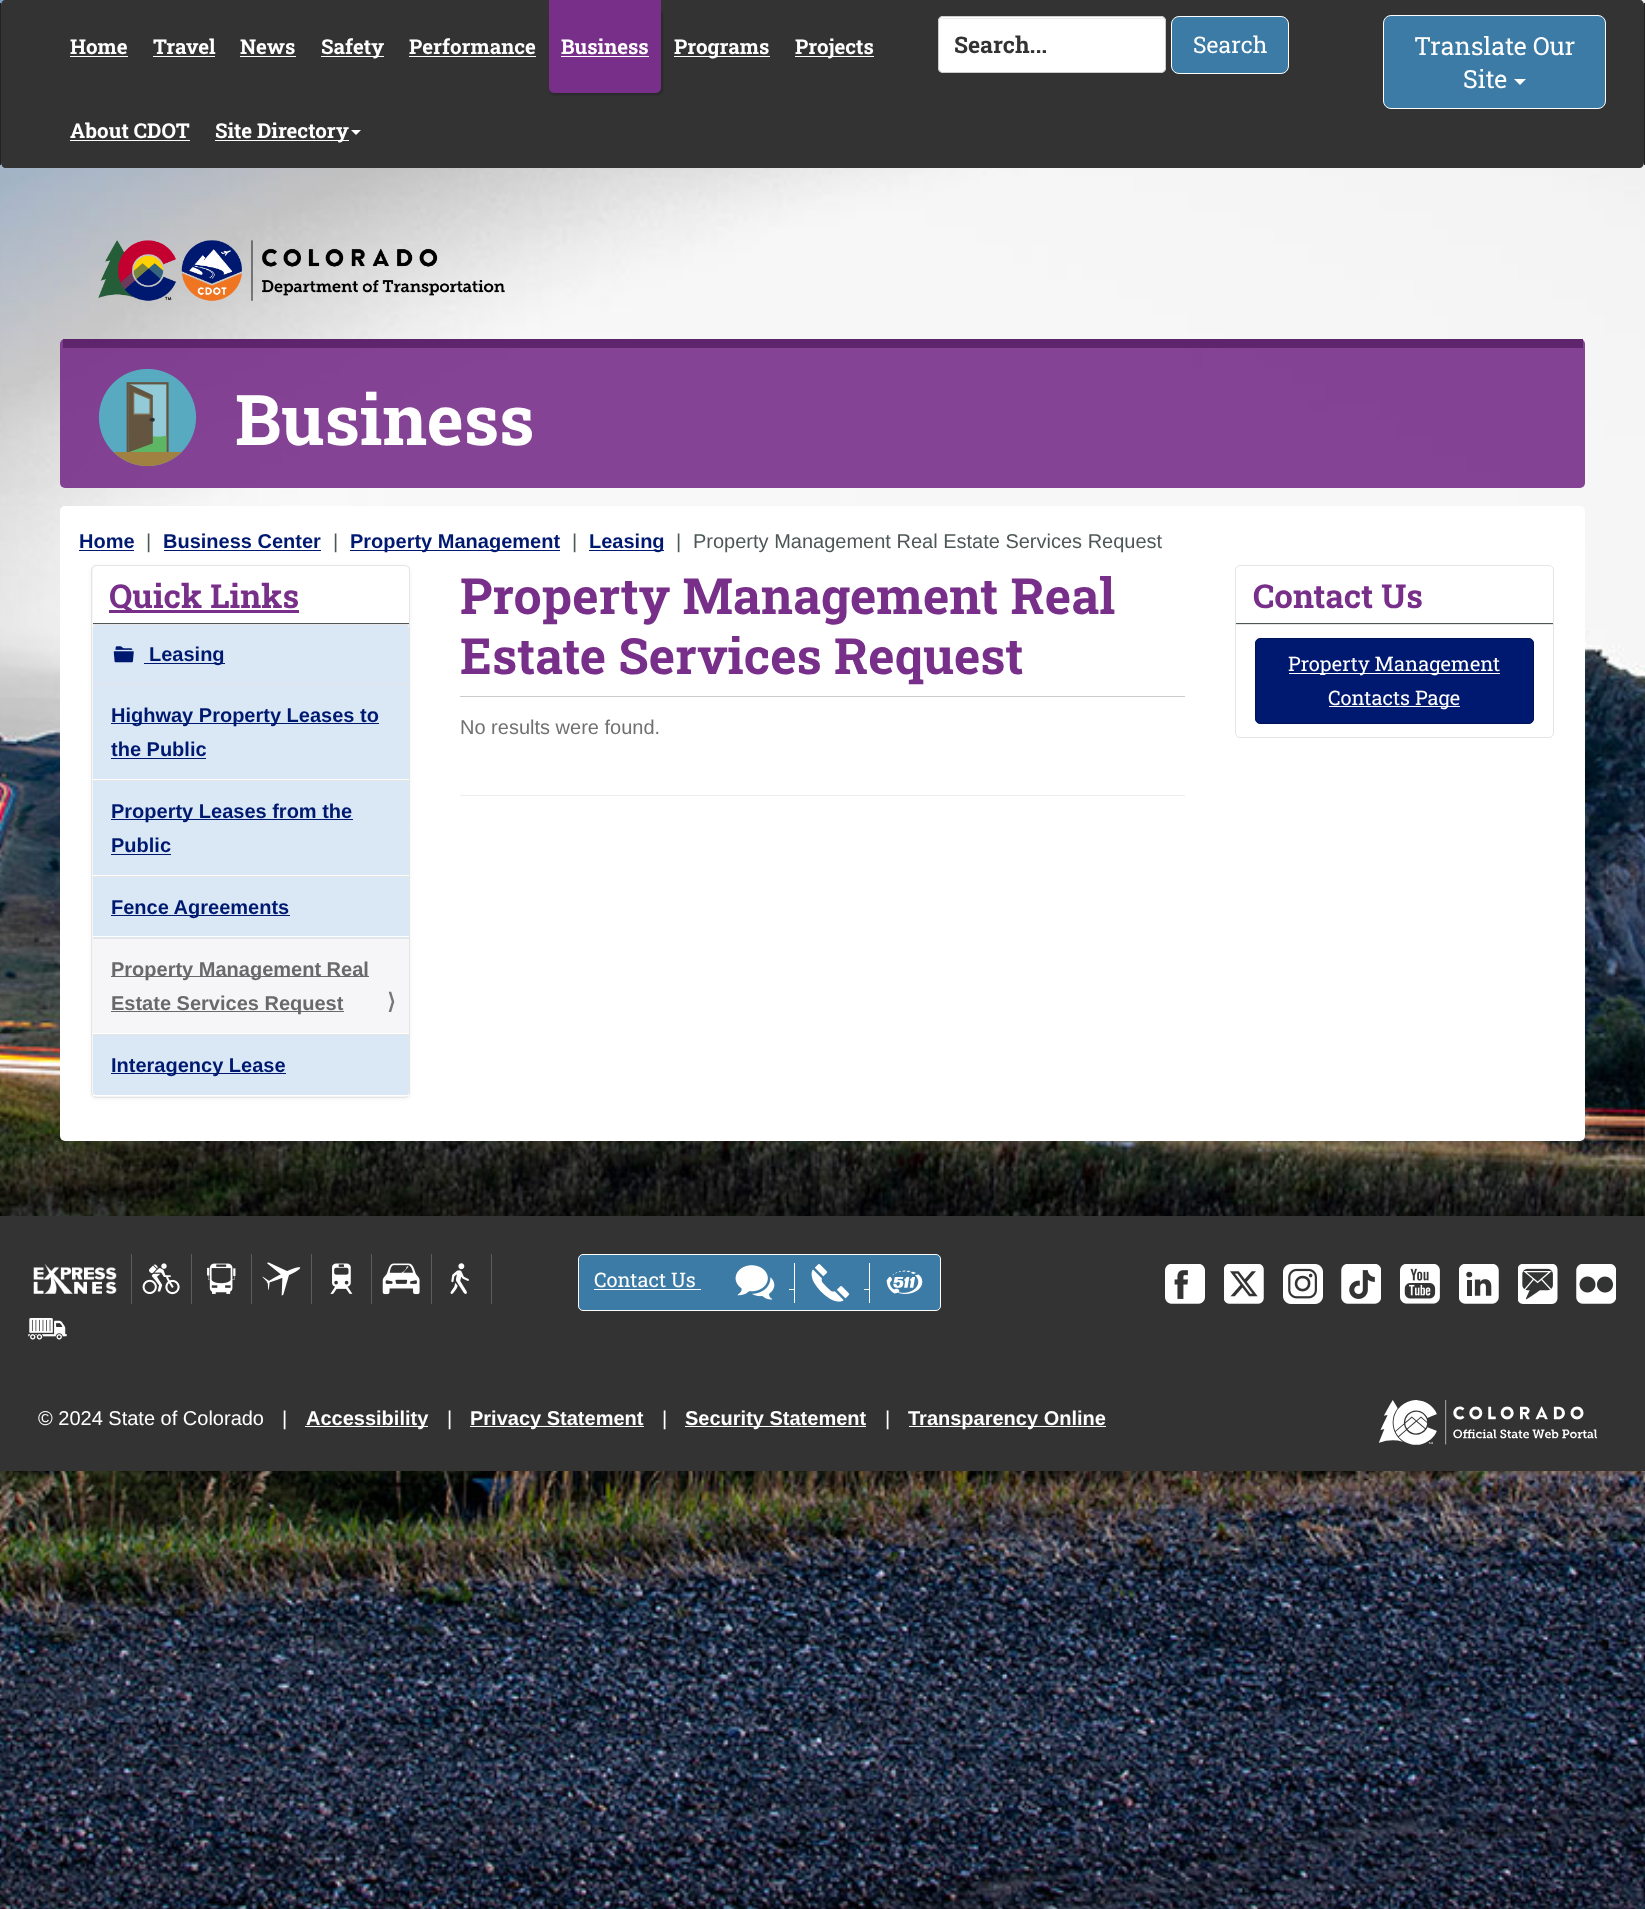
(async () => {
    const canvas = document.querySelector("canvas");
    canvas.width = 1645;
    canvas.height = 1909;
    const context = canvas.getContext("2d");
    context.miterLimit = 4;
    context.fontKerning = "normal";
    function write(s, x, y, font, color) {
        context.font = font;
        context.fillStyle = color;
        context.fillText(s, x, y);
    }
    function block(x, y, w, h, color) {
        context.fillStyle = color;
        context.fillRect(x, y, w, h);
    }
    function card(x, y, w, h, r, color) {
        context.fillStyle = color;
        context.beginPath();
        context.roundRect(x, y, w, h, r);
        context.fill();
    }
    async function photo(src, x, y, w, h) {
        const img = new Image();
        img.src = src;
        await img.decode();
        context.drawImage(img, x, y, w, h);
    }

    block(0, 0, 1645, 1909, "rgb(255, 255, 255)");
    await photo("media/1.png", 0, 0, 1645, 1909);
    context.fillStyle = "rgb(51, 51, 51)";
    context.beginPath();
    context.moveTo(5, 0);
    context.lineTo(1640, 0);
    context.bezierCurveTo(1642, 0, 1644, 2, 1644, 5);
    context.lineTo(1644, 162);
    context.bezierCurveTo(1644, 165, 1642, 168, 1640, 168);
    context.lineTo(5, 168);
    context.bezierCurveTo(3, 168, 1, 165, 1, 162);
    context.lineTo(1, 5);
    context.bezierCurveTo(1, 2, 3, 0, 5, 0);
    context.closePath();
    context.fill();
    block(1644, 3, 1, 162, "rgb(34, 34, 34)");
    block(0, 3, 1, 162, "rgb(34, 34, 34)");
    write("Home", 70, 54, "bold 20.5px Roboto Slab", "rgb(255, 255, 255)");
    block(70, 56, 58, 1, "rgb(255, 255, 255)");
    write("Travel", 153, 54, "bold 20.5px Roboto Slab", "rgb(255, 255, 255)");
    block(153, 56, 62, 1, "rgb(255, 255, 255)");
    write("News", 240, 54, "bold 20.5px Roboto Slab", "rgb(255, 255, 255)");
    block(240, 56, 56, 1, "rgb(255, 255, 255)");
    block(321, 56, 63, 1, "rgb(255, 255, 255)");
    write("Safety", 321, 54, "bold 20.5px Roboto Slab", "rgb(255, 255, 255)");
    write("Performance", 409, 54, "bold 20.5px Roboto Slab", "rgb(255, 255, 255)");
    block(409, 56, 127, 1, "rgb(255, 255, 255)");
    block(549, 0, 112, 9, "rgb(120, 47, 138)");
    context.fillStyle = "rgba(0, 0, 0, 0.2)";
    context.filter = "blur(1px)";
    context.beginPath();
    context.roundRect(550, 11, 113, 84, 5);
    context.fill();
    context.filter = "none";
    context.fillStyle = "rgb(120, 47, 138)";
    context.beginPath();
    context.roundRect(549, 9, 112, 84, [0, 0, 5, 5]);
    context.fill();
    write("Business", 561, 54, "bold 20.5px Roboto Slab", "rgb(255, 255, 255)");
    block(561, 56, 88, 1, "rgb(255, 255, 255)");
    block(674, 56, 96, 1, "rgb(255, 255, 255)");
    write("Programs", 674, 54, "bold 20.5px Roboto Slab", "rgb(255, 255, 255)");
    block(795, 56, 79, 1, "rgb(255, 255, 255)");
    write("Projects", 795, 54, "bold 20.5px Roboto Slab", "rgb(255, 255, 255)");
    write("About CDOT", 70, 138, "bold 20.5px Roboto Slab", "rgb(255, 255, 255)");
    block(70, 140, 120, 1, "rgb(255, 255, 255)");
    block(215, 140, 134, 1, "rgb(255, 255, 255)");
    write("Site Directory", 215, 138, "bold 20.5px Roboto Slab", "rgb(255, 255, 255)");
    context.beginPath();
    context.moveTo(351, 130);
    context.lineTo(361, 130);
    context.lineTo(356, 135);
    context.closePath();
    context.fill();
    card(938, 16, 228, 57, 5, "rgb(255, 255, 255)");
    context.fillStyle = "rgb(236, 236, 236)";
    context.beginPath();
    context.moveTo(942, 19);
    context.lineTo(1161, 19);
    context.bezierCurveTo(1163, 19, 1165, 20, 1165, 22);
    context.bezierCurveTo(1165, 20, 1163, 18, 1161, 18);
    context.lineTo(943, 18);
    context.bezierCurveTo(942, 18, 940, 19, 940, 20);
    context.closePath();
    context.fill();
    context.beginPath();
    context.roundRect(938.5, 16.5, 227, 56, 4.5);
    context.strokeStyle = "rgb(204, 204, 204)";
    context.stroke();
    write("Search...", 954, 53, "bold 23px Roboto Slab", "rgb(51, 51, 51)");
    context.fillStyle = "rgb(59, 123, 165)";
    context.beginPath();
    context.roundRect(1171.5, 16.5, 117, 57, 7.5);
    context.fill();
    context.strokeStyle = "rgb(255, 255, 255)";
    context.stroke();
    write("Search", 1193, 53, "23px Roboto Slab", "rgb(255, 255, 255)");
    context.fillStyle = "rgb(59, 123, 165)";
    context.beginPath();
    context.roundRect(1383.5, 15.5, 222, 93, 7.5);
    context.fill();
    context.stroke();
    write("Translate Our", 1414, 55, "25px Roboto Slab", "rgb(255, 255, 255)");
    write("Site", 1463, 88, "25px Roboto Slab", "rgb(255, 255, 255)");
    context.beginPath();
    context.moveTo(1514, 79);
    context.lineTo(1526, 79);
    context.lineTo(1520, 85);
    context.closePath();
    context.fill();
    await photo("media/2.png", 98, 240, 407, 61);
    card(60, 339, 1525, 149, 5, "rgba(120, 47, 138, 0.9)");
    await photo("media/3.png", 98, 368, 99, 99);
    block(63, 339, 1520, 9, "rgb(94, 36, 108)");
    write("Business", 235, 445, "bold 70px Roboto Slab", "rgb(255, 255, 255)");
    card(60, 506, 1525, 635, 5, "rgb(255, 255, 255)");
    write("Home", 79, 548, "bold 20px Liberation Sans", "rgb(0, 25, 112)");
    block(79, 550, 55, 1, "rgb(0, 25, 112)");
    write("|", 146, 548, "20px Liberation Sans", "rgb(78, 87, 87)");
    write("Business Center", 163, 548, "bold 20px Liberation Sans", "rgb(0, 25, 112)");
    block(164, 550, 157, 1, "rgb(0, 25, 112)");
    write("|", 333, 548, "20px Liberation Sans", "rgb(78, 87, 87)");
    block(350, 550, 210, 1, "rgb(0, 25, 112)");
    write("Property Management", 350, 548, "bold 20px Liberation Sans", "rgb(0, 25, 112)");
    write("|", 572, 548, "20px Liberation Sans", "rgb(78, 87, 87)");
    block(589, 550, 75, 1, "rgb(0, 25, 112)");
    write("Leasing", 589, 548, "bold 20px Liberation Sans", "rgb(0, 25, 112)");
    write("|", 676, 548, "20px Liberation Sans", "rgb(78, 87, 87)");
    write("Property Management Real Estate Services Request", 693, 548, "20px Liberation Sans", "rgb(78, 87, 87)");
    context.fillStyle = "rgba(0, 0, 0, 0.05)";
    context.filter = "blur(2px)";
    context.beginPath();
    context.roundRect(91, 566, 319, 533, 5);
    context.fill();
    context.filter = "none";
    context.beginPath();
    context.roundRect(91.5, 565.5, 318, 532, 4.5);
    context.strokeStyle = "rgb(229, 229, 229)";
    context.stroke();
    context.fillStyle = "rgb(255, 255, 255)";
    context.beginPath();
    context.roundRect(93, 566, 316, 58, [5, 5, 0, 0]);
    context.fill();
    block(93, 623, 316, 1, "rgb(78, 87, 87)");
    block(109, 610, 190, 3, "rgb(120, 47, 138)");
    write("Quick Links", 109, 608, "bold 33px Roboto Slab", "rgb(120, 47, 138)");
    card(93, 624, 316, 472, 5, "rgb(217, 232, 244)");
    block(93, 624, 316, 1, "rgb(229, 229, 229)");
    await photo("media/4.png", 113, 646, 21, 17);
    block(144, 663, 81, 1, "rgb(0, 25, 112)");
    write("Leasing", 149, 661, "bold 20px Liberation Sans", "rgb(0, 25, 112)");
    block(93, 684, 316, 1, "rgb(229, 229, 229)");
    block(93, 779, 316, 1, "rgb(255, 255, 255)");
    block(111, 723, 268, 1, "rgb(0, 25, 112)");
    write("Highway Property Leases to", 111, 722, "bold 20px Liberation Sans", "rgb(0, 25, 112)");
    write("the Public", 111, 756, "bold 20px Liberation Sans", "rgb(0, 25, 112)");
    block(111, 758, 95, 1, "rgb(0, 25, 112)");
    block(93, 780, 316, 1, "rgb(229, 229, 229)");
    block(93, 875, 316, 1, "rgb(255, 255, 255)");
    block(111, 819, 242, 1, "rgb(0, 25, 112)");
    write("Property Leases from the", 111, 818, "bold 20px Liberation Sans", "rgb(0, 25, 112)");
    write("Public", 111, 852, "bold 20px Liberation Sans", "rgb(0, 25, 112)");
    block(111, 854, 60, 1, "rgb(0, 25, 112)");
    block(93, 876, 316, 1, "rgb(229, 229, 229)");
    block(93, 936, 316, 1, "rgb(255, 255, 255)");
    block(111, 915, 179, 1, "rgb(0, 25, 112)");
    write("Fence Agreements", 111, 914, "bold 20px Liberation Sans", "rgb(0, 25, 112)");
    block(93, 939, 316, 94, "rgb(246, 246, 249)");
    block(93, 938, 316, 1, "rgb(229, 229, 229)");
    block(93, 1033, 316, 1, "rgb(255, 255, 255)");
    block(111, 976, 258, 1, "rgb(105, 105, 105)");
    write("Property Management Real", 111, 976, "bold 20px Liberation Sans", "rgb(105, 105, 105)");
    block(111, 1011, 233, 1, "rgb(105, 105, 105)");
    write("Estate Services Request", 111, 1010, "bold 20px Liberation Sans", "rgb(105, 105, 105)");
    write("⟩", 387, 1009, "bold 22px DejaVu Sans", "rgb(119, 119, 119)");
    block(93, 1034, 316, 1, "rgb(229, 229, 229)");
    block(93, 1095, 316, 1, "rgb(255, 255, 255)");
    block(111, 1073, 175, 1, "rgb(0, 25, 112)");
    write("Interagency Lease", 111, 1072, "bold 20px Liberation Sans", "rgb(0, 25, 112)");
    block(460, 696, 725, 1, "rgb(204, 204, 204)");
    write("Property Management Real", 460, 614, "bold 50px Roboto Slab", "rgb(120, 47, 138)");
    write("Estate Services Request", 460, 674, "bold 50px Roboto Slab", "rgb(120, 47, 138)");
    write("No results were found.", 460, 734, "20px Liberation Sans", "rgb(113, 113, 113)");
    block(460, 795, 725, 1, "rgb(238, 238, 238)");
    context.beginPath();
    context.roundRect(1235.5, 565.5, 318, 172, 4.5);
    context.stroke();
    context.fillStyle = "rgb(255, 255, 255)";
    context.beginPath();
    context.roundRect(1236, 566, 317, 58, [5, 5, 0, 0]);
    context.fill();
    block(1236, 623, 317, 1, "rgb(78, 87, 87)");
    write("Contact Us", 1253, 608, "bold 33px Roboto Slab", "rgb(120, 47, 138)");
    block(1236, 624, 317, 1, "rgb(229, 229, 229)");
    context.fillStyle = "rgb(0, 25, 112)";
    context.beginPath();
    context.roundRect(1255.5, 638.5, 278, 85, 4.5);
    context.fill();
    context.strokeStyle = "rgb(0, 19, 87)";
    context.stroke();
    block(1289, 673, 211, 1, "rgb(255, 255, 255)");
    write("Property Management", 1288, 671, "20px Roboto Slab", "rgb(255, 255, 255)");
    block(1329, 706, 131, 1, "rgb(255, 255, 255)");
    write("Contacts Page", 1328, 705, "20px Roboto Slab", "rgb(255, 255, 255)");
    block(0, 1216, 1645, 255, "rgb(51, 51, 51)");
    block(131, 1254, 1, 50, "rgb(92, 92, 92)");
    await photo("media/5.png", 33, 1263, 84, 31);
    block(191, 1254, 1, 50, "rgb(92, 92, 92)");
    await photo("media/6.png", 142, 1263, 38, 32);
    block(251, 1254, 1, 50, "rgb(92, 92, 92)");
    await photo("media/7.png", 207, 1263, 29, 31);
    block(311, 1254, 1, 50, "rgb(92, 92, 92)");
    await photo("media/8.png", 262, 1262, 39, 34);
    block(371, 1254, 1, 50, "rgb(92, 92, 92)");
    await photo("media/9.png", 330, 1263, 23, 31);
    block(431, 1254, 1, 50, "rgb(92, 92, 92)");
    await photo("media/10.png", 382, 1263, 38, 32);
    block(491, 1254, 1, 50, "rgb(92, 92, 92)");
    await photo("media/11.png", 450, 1263, 19, 31);
    await photo("media/12.png", 28, 1318, 39, 22);
    context.fillStyle = "rgb(59, 123, 165)";
    context.beginPath();
    context.roundRect(578.5, 1254.5, 362, 56, 4.5);
    context.fill();
    context.strokeStyle = "rgb(255, 255, 255)";
    context.stroke();
    write("Contact Us", 594, 1287, "20px Roboto Slab", "rgb(255, 255, 255)");
    block(594, 1289, 107, 1, "rgb(255, 255, 255)");
    await photo("media/13.png", 735, 1265, 40, 35);
    block(794, 1263, 1, 40, "rgb(255, 255, 255)");
    await photo("media/14.png", 811, 1264, 39, 38);
    block(869, 1263, 1, 40, "rgb(255, 255, 255)");
    await photo("media/15.png", 886, 1270, 37, 24);
    block(789, 1289, 5, 1, "rgb(255, 255, 255)");
    block(864, 1289, 5, 1, "rgb(255, 255, 255)");
    await photo("media/16.png", 1165, 1264, 40, 40);
    await photo("media/17.png", 1224, 1264, 40, 40);
    await photo("media/18.png", 1283, 1264, 40, 40);
    await photo("media/19.png", 1341, 1264, 40, 40);
    await photo("media/20.png", 1400, 1264, 40, 40);
    await photo("media/21.png", 1459, 1264, 40, 40);
    await photo("media/22.png", 1518, 1264, 40, 40);
    await photo("media/23.png", 1576, 1264, 40, 40);
    write("© 2024 State of Colorado", 38, 1425, "20px Liberation Sans", "rgb(255, 255, 255)");
    write("|", 282, 1425, "20px Liberation Sans", "rgb(255, 255, 255)");
    block(305, 1426, 123, 1, "rgb(255, 255, 255)");
    write("Accessibility", 306, 1425, "bold 20px Liberation Sans", "rgb(255, 255, 255)");
    write("|", 447, 1425, "20px Liberation Sans", "rgb(255, 255, 255)");
    block(470, 1426, 174, 1, "rgb(255, 255, 255)");
    write("Privacy Statement", 470, 1425, "bold 20px Liberation Sans", "rgb(255, 255, 255)");
    write("|", 662, 1425, "20px Liberation Sans", "rgb(255, 255, 255)");
    block(685, 1426, 181, 1, "rgb(255, 255, 255)");
    write("Security Statement", 685, 1425, "bold 20px Liberation Sans", "rgb(255, 255, 255)");
    write("|", 885, 1425, "20px Liberation Sans", "rgb(255, 255, 255)");
    block(909, 1426, 197, 1, "rgb(255, 255, 255)");
    write("Transparency Online", 908, 1425, "bold 20px Liberation Sans", "rgb(255, 255, 255)");
    await photo("media/24.png", 1379, 1400, 219, 45);
})();
